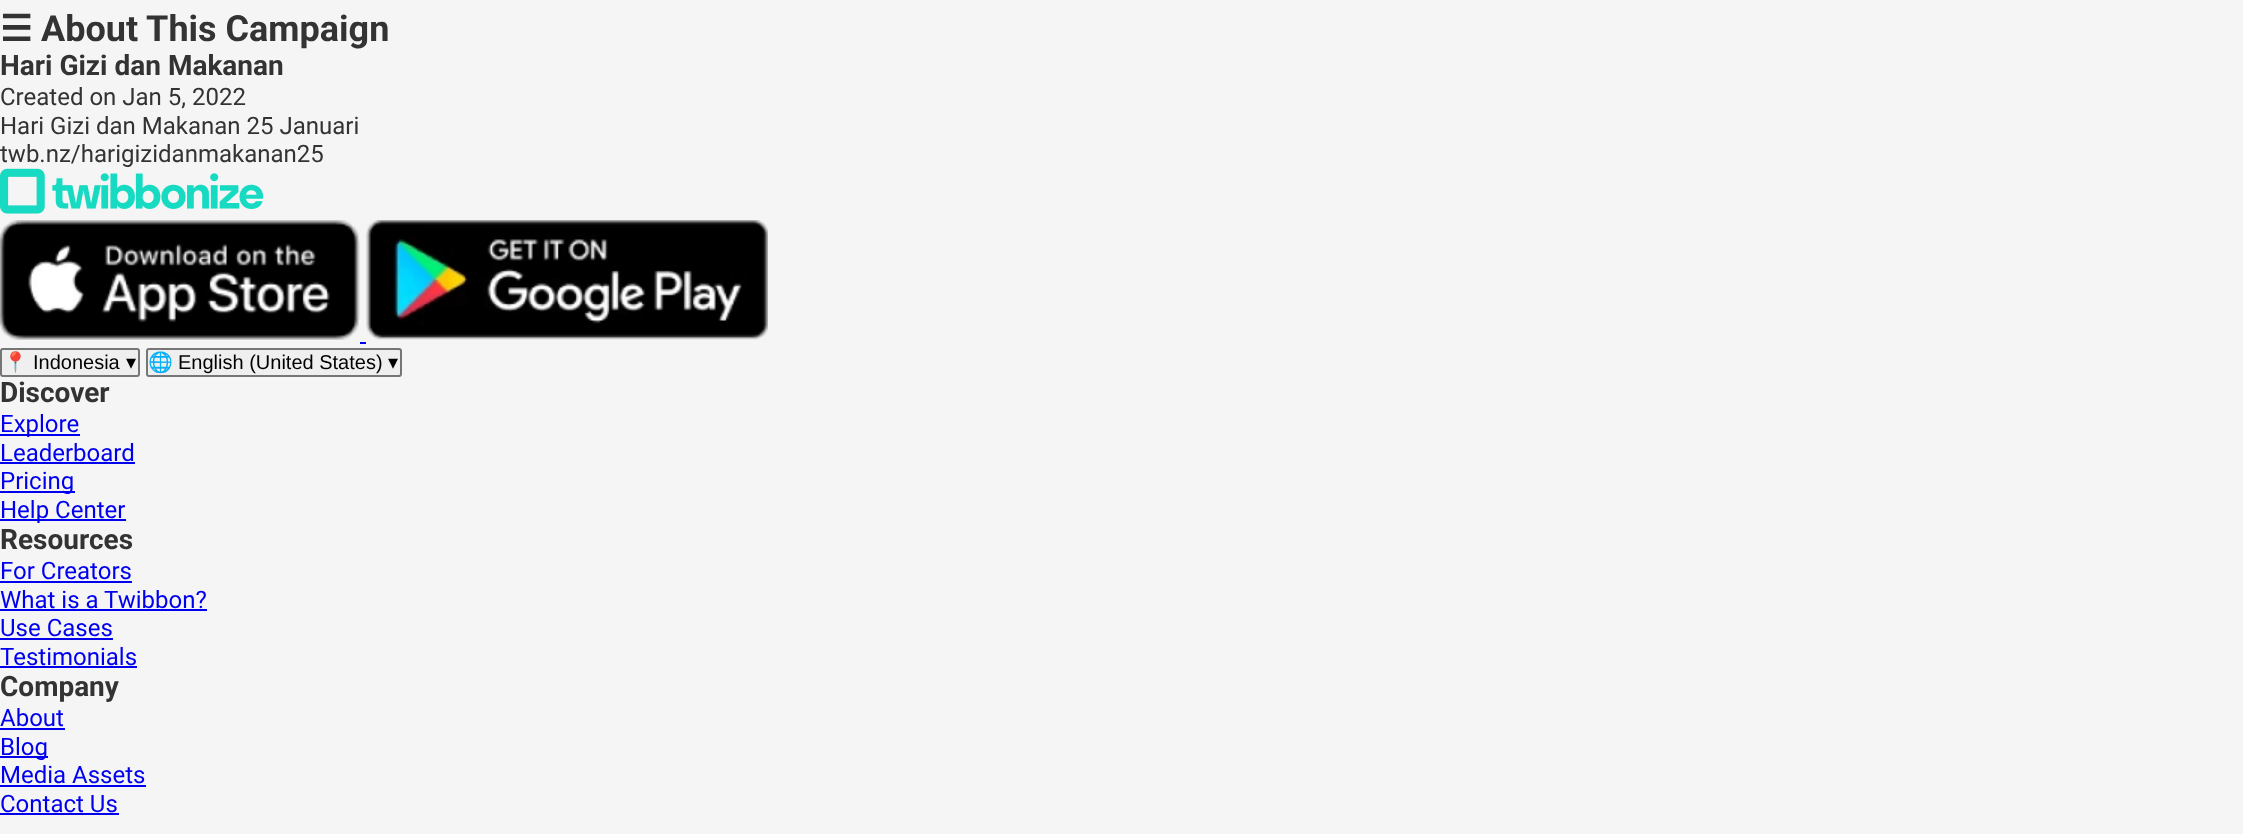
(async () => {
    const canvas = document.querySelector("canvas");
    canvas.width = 2243;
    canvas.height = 834;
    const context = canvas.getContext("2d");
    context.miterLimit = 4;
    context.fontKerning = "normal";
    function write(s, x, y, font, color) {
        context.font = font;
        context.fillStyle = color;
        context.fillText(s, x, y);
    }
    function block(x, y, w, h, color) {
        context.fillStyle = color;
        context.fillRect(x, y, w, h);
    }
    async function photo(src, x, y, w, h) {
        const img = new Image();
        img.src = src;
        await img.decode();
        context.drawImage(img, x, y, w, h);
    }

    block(0, 0, 2243, 834, "rgb(245, 245, 245)");
    write("☰", 0, 41, "bold 36px DejaVu Sans", "rgb(51, 51, 51)");
    write("About This Campaign", 41, 41, "bold 36px Roboto", "rgb(51, 51, 51)");
    write("Hari Gizi dan Makanan", 0, 75, "bold 28px Roboto", "rgb(51, 51, 51)");
    write("Created on Jan 5, 2022", 0, 105, "24px Roboto", "rgb(51, 51, 51)");
    write("Hari Gizi dan Makanan 25 Januari", 0, 134, "24px Roboto", "rgb(51, 51, 51)");
    write("twb.nz/harigizidanmakanan25", 0, 162, "24px Roboto", "rgb(51, 51, 51)");
    await photo("media/1.png", 0, 168, 264, 46);
    await photo("media/2.png", 0, 220, 360, 120);
    await photo("media/3.png", 366, 220, 402, 120);
    block(360, 342, 6, 2, "rgb(0, 0, 238)");
    context.fillStyle = "rgb(239, 239, 239)";
    context.beginPath();
    context.roundRect(1, 349, 138, 27, 2);
    context.fill();
    context.strokeStyle = "rgb(118, 118, 118)";
    context.lineWidth = 2;
    context.stroke();
    write("📍", 3, 369, "20px Noto Color Emoji", "rgb(0, 0, 0)");
    write("Indonesia", 33, 369, "20px Liberation Sans", "rgb(0, 0, 0)");
    write("▾", 126, 369, "20px DejaVu Sans", "rgb(0, 0, 0)");
    context.fillStyle = "rgb(239, 239, 239)";
    context.beginPath();
    context.roundRect(147, 349, 254, 27, 2);
    context.fill();
    context.stroke();
    write("🌐", 148, 369, "20px Noto Color Emoji", "rgb(0, 0, 0)");
    write("English (United States)", 178, 369, "20px Liberation Sans", "rgb(0, 0, 0)");
    write("▾", 388, 369, "20px DejaVu Sans", "rgb(0, 0, 0)");
    write("Discover", 0, 402, "bold 28px Roboto", "rgb(51, 51, 51)");
    block(0, 434, 80, 2, "rgb(0, 0, 238)");
    write("Explore", 0, 432, "24px Roboto", "rgb(0, 0, 238)");
    write("Leaderboard", 0, 461, "24px Roboto", "rgb(0, 0, 238)");
    block(0, 462, 135, 2, "rgb(0, 0, 238)");
    block(0, 491, 75, 2, "rgb(0, 0, 238)");
    write("Pricing", 0, 489, "24px Roboto", "rgb(0, 0, 238)");
    block(0, 519, 126, 2, "rgb(0, 0, 238)");
    write("Help Center", 0, 518, "24px Roboto", "rgb(0, 0, 238)");
    write("Resources", 0, 549, "bold 28px Roboto", "rgb(51, 51, 51)");
    write("For Creators", 0, 579, "24px Roboto", "rgb(0, 0, 238)");
    block(0, 581, 132, 2, "rgb(0, 0, 238)");
    write("What is a Twibbon?", 0, 608, "24px Roboto", "rgb(0, 0, 238)");
    block(0, 609, 207, 2, "rgb(0, 0, 238)");
    write("Use Cases", 0, 636, "24px Roboto", "rgb(0, 0, 238)");
    block(0, 638, 113, 2, "rgb(0, 0, 238)");
    write("Testimonials", 0, 665, "24px Roboto", "rgb(0, 0, 238)");
    block(0, 666, 137, 2, "rgb(0, 0, 238)");
    write("Company", 0, 696, "bold 28px Roboto", "rgb(51, 51, 51)");
    write("About", 0, 726, "24px Roboto", "rgb(0, 0, 238)");
    block(0, 728, 65, 2, "rgb(0, 0, 238)");
    block(0, 756, 48, 2, "rgb(0, 0, 238)");
    write("Blog", 0, 755, "24px Roboto", "rgb(0, 0, 238)");
    write("Media Assets", 0, 783, "24px Roboto", "rgb(0, 0, 238)");
    block(0, 785, 146, 2, "rgb(0, 0, 238)");
    write("Contact Us", 0, 812, "24px Roboto", "rgb(0, 0, 238)");
    block(0, 813, 119, 2, "rgb(0, 0, 238)");
})();
